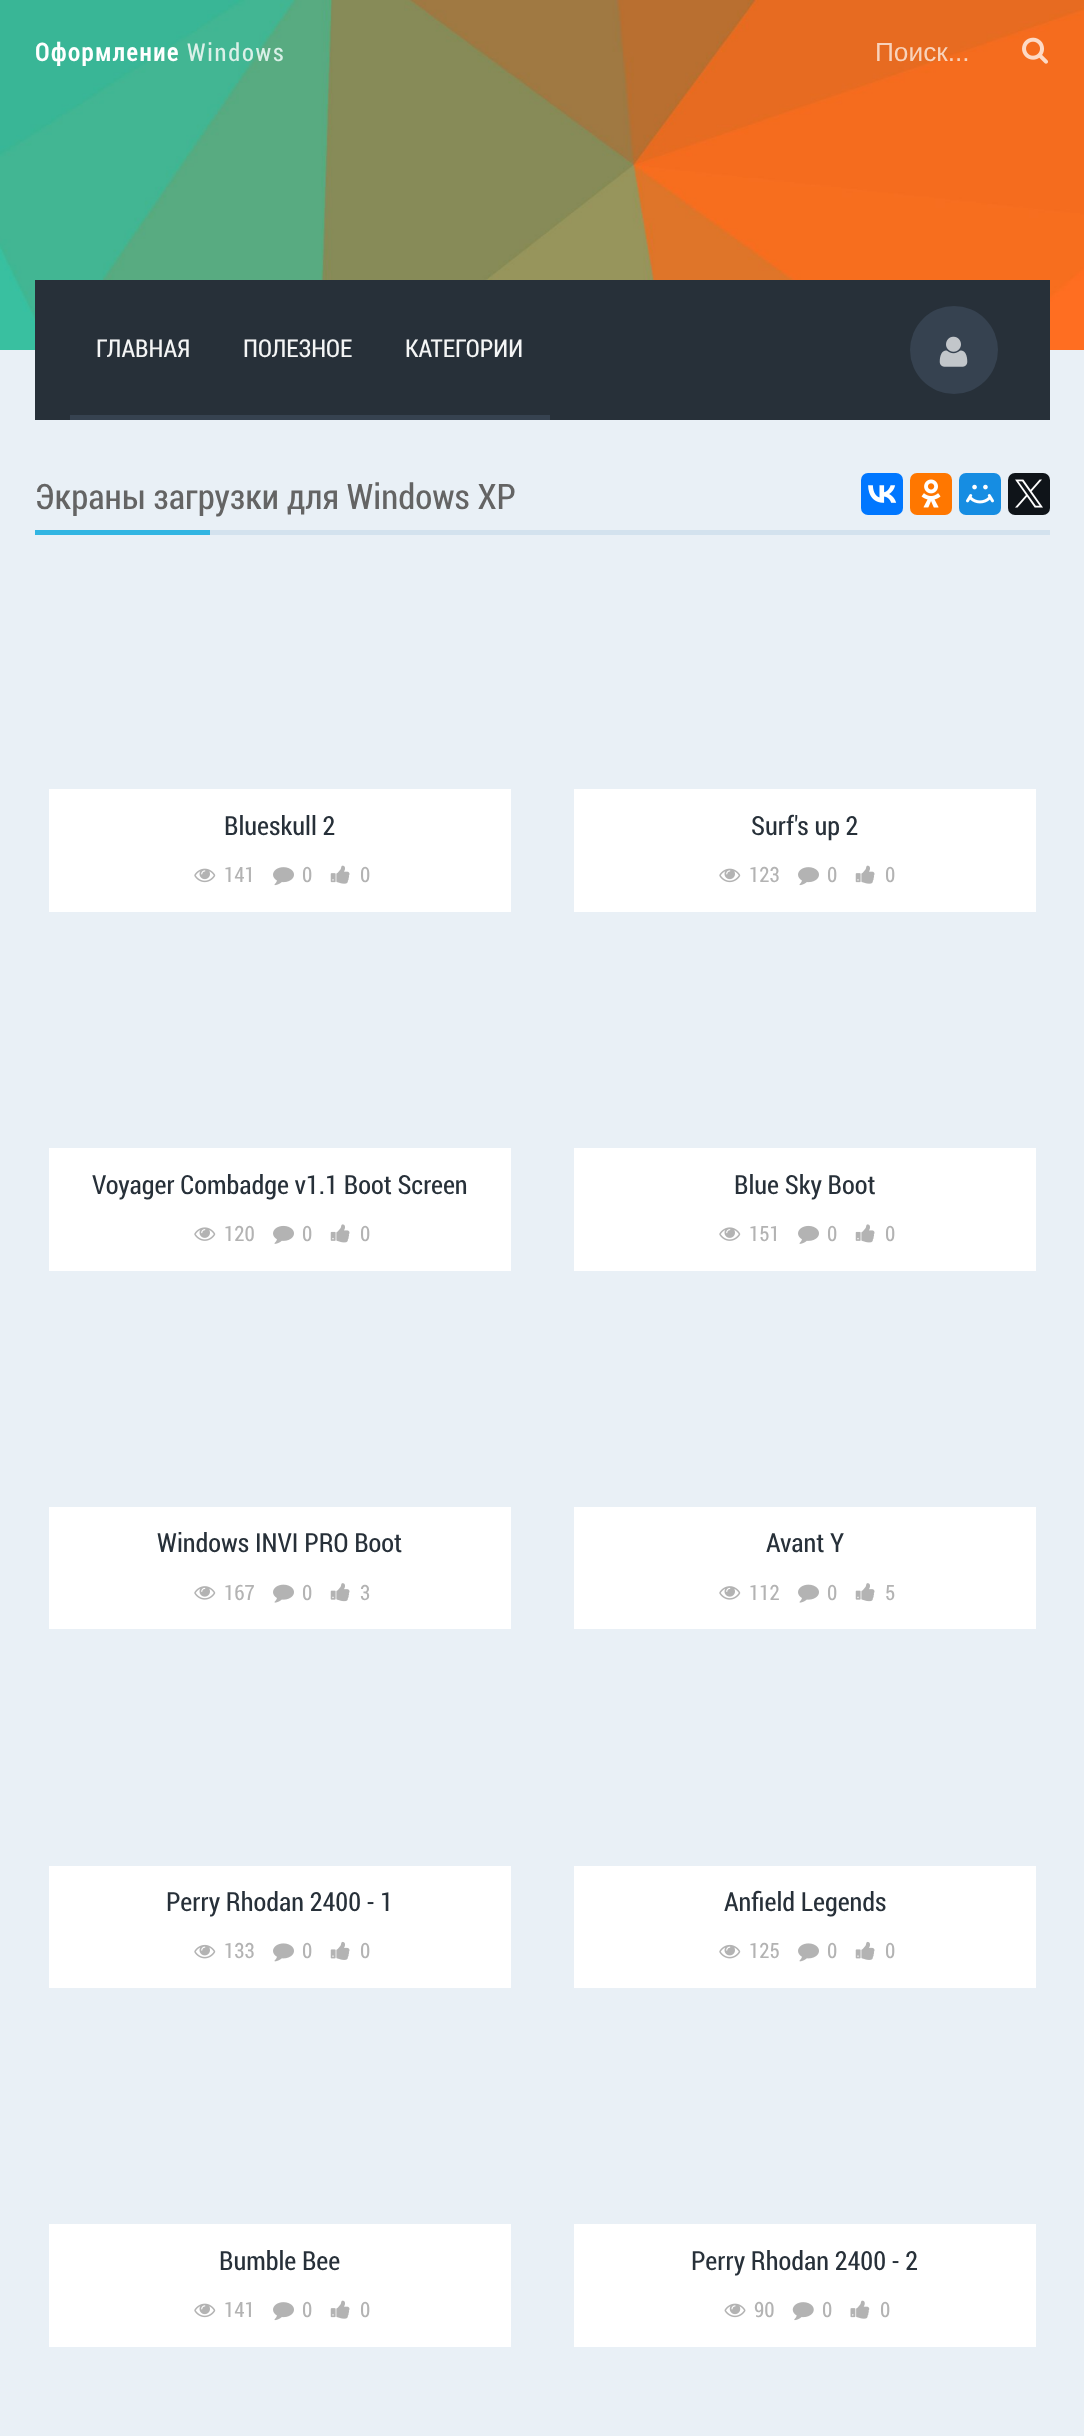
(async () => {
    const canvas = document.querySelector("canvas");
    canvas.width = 1084;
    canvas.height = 2436;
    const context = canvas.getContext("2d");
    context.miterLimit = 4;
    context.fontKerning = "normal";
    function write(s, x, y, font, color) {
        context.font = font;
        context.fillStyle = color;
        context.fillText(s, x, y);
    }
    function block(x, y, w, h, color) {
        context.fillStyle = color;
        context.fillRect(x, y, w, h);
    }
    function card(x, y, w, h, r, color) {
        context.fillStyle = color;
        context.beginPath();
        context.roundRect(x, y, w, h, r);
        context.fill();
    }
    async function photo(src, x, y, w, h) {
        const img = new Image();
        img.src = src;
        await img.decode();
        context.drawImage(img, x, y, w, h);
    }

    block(0, 0, 1084, 2436, "rgb(233, 240, 246)");
    await photo("media/1.png", 0, 0, 1084, 350);
    context.letterSpacing = "1.75px";
    write("Оформление", 35, 61, "bold 24.5px Roboto Condensed", "rgb(255, 255, 255)");
    write("Windows", 187, 61, "24.5px Roboto Condensed", "rgb(218, 240, 232)");
    context.letterSpacing = "0px";
    write("Поиск...", 875, 61, "26.25px Liberation Sans", "rgb(248, 211, 188)");
    await photo("media/2.png", 1022, 37, 26, 27);
    block(35, 280, 1015, 140, "rgb(39, 48, 57)");
    block(70, 415, 480, 5, "rgb(54, 66, 80)");
    write("ГЛАВНАЯ", 96, 357, "24.5px Roboto Condensed", "rgb(244, 245, 245)");
    write("ПОЛЕЗНОЕ", 243, 357, "24.5px Roboto Condensed", "rgb(244, 245, 245)");
    write("КАТЕГОРИИ", 405, 357, "24.5px Roboto Condensed", "rgb(244, 245, 245)");
    context.fillStyle = "rgb(54, 66, 80)";
    context.beginPath();
    context.arc(954, 350, 44, 0, Math.PI * 2);
    context.fill();
    await photo("media/3.png", 939, 336, 29, 31);
    block(210, 530, 840, 5, "rgb(211, 226, 238)");
    write("Экраны загрузки для Windows XP", 35, 509, "35px Roboto Condensed", "rgb(100, 100, 100)");
    card(861, 473, 42, 42, 7, "rgb(0, 119, 255)");
    await photo("media/4.png", 868, 485, 29, 18);
    card(910, 473, 42, 42, 7, "rgb(255, 119, 0)");
    await photo("media/5.png", 921, 479, 20, 29);
    card(959, 473, 42, 42, 7, "rgb(22, 141, 226)");
    await photo("media/6.png", 966, 484, 28, 20);
    card(1008, 473, 42, 42, 7, "rgb(15, 20, 25)");
    await photo("media/7.png", 1015, 479, 28, 29);
    block(35, 530, 175, 5, "rgb(50, 181, 226)");
    block(49, 789, 462, 123, "rgb(255, 255, 255)");
    write("Blueskull 2", 224, 835, "26.25px Roboto Condensed", "rgb(39, 48, 57)");
    await photo("media/8.png", 194, 868, 22, 15);
    write("141", 224, 882, "21px Roboto Condensed", "rgb(179, 179, 179)");
    await photo("media/9.png", 273, 867, 21, 19);
    write("0", 302, 882, "21px Roboto Condensed", "rgb(179, 179, 179)");
    await photo("media/10.png", 330, 865, 20, 19);
    write("0", 360, 882, "21px Roboto Condensed", "rgb(179, 179, 179)");
    block(574, 789, 462, 123, "rgb(255, 255, 255)");
    write("Surf's up 2", 751, 835, "26.25px Roboto Condensed", "rgb(39, 48, 57)");
    await photo("media/8.png", 719, 868, 22, 15);
    write("123", 749, 882, "21px Roboto Condensed", "rgb(179, 179, 179)");
    await photo("media/9.png", 798, 867, 21, 19);
    write("0", 827, 882, "21px Roboto Condensed", "rgb(179, 179, 179)");
    await photo("media/10.png", 855, 865, 20, 19);
    write("0", 885, 882, "21px Roboto Condensed", "rgb(179, 179, 179)");
    block(49, 1148, 462, 123, "rgb(255, 255, 255)");
    write("Voyager Combadge v1.1 Boot Screen", 92, 1194, "26.25px Roboto Condensed", "rgb(39, 48, 57)");
    await photo("media/11.png", 194, 1227, 22, 14);
    write("120", 224, 1241, "21px Roboto Condensed", "rgb(179, 179, 179)");
    await photo("media/12.png", 273, 1225, 21, 19);
    write("0", 302, 1241, "21px Roboto Condensed", "rgb(179, 179, 179)");
    await photo("media/13.png", 330, 1224, 20, 19);
    write("0", 360, 1241, "21px Roboto Condensed", "rgb(179, 179, 179)");
    block(574, 1148, 462, 123, "rgb(255, 255, 255)");
    write("Blue Sky Boot", 734, 1194, "26.25px Roboto Condensed", "rgb(39, 48, 57)");
    await photo("media/11.png", 719, 1227, 22, 14);
    write("151", 749, 1241, "21px Roboto Condensed", "rgb(179, 179, 179)");
    await photo("media/12.png", 798, 1225, 21, 19);
    write("0", 827, 1241, "21px Roboto Condensed", "rgb(179, 179, 179)");
    await photo("media/13.png", 855, 1224, 20, 19);
    write("0", 885, 1241, "21px Roboto Condensed", "rgb(179, 179, 179)");
    block(49, 1507, 462, 122, "rgb(255, 255, 255)");
    write("Windows INVI PRO Boot", 157, 1552, "26.25px Roboto Condensed", "rgb(39, 48, 57)");
    await photo("media/14.png", 194, 1586, 22, 14);
    write("167", 224, 1600, "21px Roboto Condensed", "rgb(179, 179, 179)");
    await photo("media/15.png", 273, 1584, 21, 19);
    write("0", 302, 1600, "21px Roboto Condensed", "rgb(179, 179, 179)");
    await photo("media/16.png", 330, 1583, 20, 19);
    write("3", 360, 1600, "21px Roboto Condensed", "rgb(179, 179, 179)");
    block(574, 1507, 462, 122, "rgb(255, 255, 255)");
    write("Avant Y", 766, 1552, "26.25px Roboto Condensed", "rgb(39, 48, 57)");
    await photo("media/14.png", 719, 1586, 22, 14);
    write("112", 749, 1600, "21px Roboto Condensed", "rgb(179, 179, 179)");
    await photo("media/15.png", 798, 1584, 21, 19);
    write("0", 827, 1600, "21px Roboto Condensed", "rgb(179, 179, 179)");
    await photo("media/16.png", 855, 1583, 20, 19);
    write("5", 885, 1600, "21px Roboto Condensed", "rgb(179, 179, 179)");
    block(49, 1866, 462, 122, "rgb(255, 255, 255)");
    write("Perry Rhodan 2400 - 1", 166, 1911, "26.25px Roboto Condensed", "rgb(39, 48, 57)");
    await photo("media/17.png", 194, 1944, 22, 15);
    write("133", 224, 1958, "21px Roboto Condensed", "rgb(179, 179, 179)");
    await photo("media/18.png", 273, 1943, 21, 19);
    write("0", 302, 1958, "21px Roboto Condensed", "rgb(179, 179, 179)");
    await photo("media/19.png", 330, 1941, 20, 19);
    write("0", 360, 1958, "21px Roboto Condensed", "rgb(179, 179, 179)");
    block(574, 1866, 462, 122, "rgb(255, 255, 255)");
    write("Anfield Legends", 724, 1911, "26.25px Roboto Condensed", "rgb(39, 48, 57)");
    await photo("media/17.png", 719, 1944, 22, 15);
    write("125", 749, 1958, "21px Roboto Condensed", "rgb(179, 179, 179)");
    await photo("media/18.png", 798, 1943, 21, 19);
    write("0", 827, 1958, "21px Roboto Condensed", "rgb(179, 179, 179)");
    await photo("media/19.png", 855, 1941, 20, 19);
    write("0", 885, 1958, "21px Roboto Condensed", "rgb(179, 179, 179)");
    block(49, 2224, 462, 123, "rgb(255, 255, 255)");
    write("Bumble Bee", 219, 2270, "26.25px Roboto Condensed", "rgb(39, 48, 57)");
    await photo("media/8.png", 194, 2303, 22, 15);
    write("141", 224, 2317, "21px Roboto Condensed", "rgb(179, 179, 179)");
    await photo("media/9.png", 273, 2302, 21, 19);
    write("0", 302, 2317, "21px Roboto Condensed", "rgb(179, 179, 179)");
    await photo("media/10.png", 330, 2300, 20, 19);
    write("0", 360, 2317, "21px Roboto Condensed", "rgb(179, 179, 179)");
    block(574, 2224, 462, 123, "rgb(255, 255, 255)");
    write("Perry Rhodan 2400 - 2", 691, 2270, "26.25px Roboto Condensed", "rgb(39, 48, 57)");
    await photo("media/20.png", 724, 2303, 22, 15);
    write("90", 754, 2317, "21px Roboto Condensed", "rgb(179, 179, 179)");
    await photo("media/21.png", 792, 2302, 22, 19);
    write("0", 822, 2317, "21px Roboto Condensed", "rgb(179, 179, 179)");
    await photo("media/22.png", 850, 2300, 20, 19);
    write("0", 880, 2317, "21px Roboto Condensed", "rgb(179, 179, 179)");
})();
